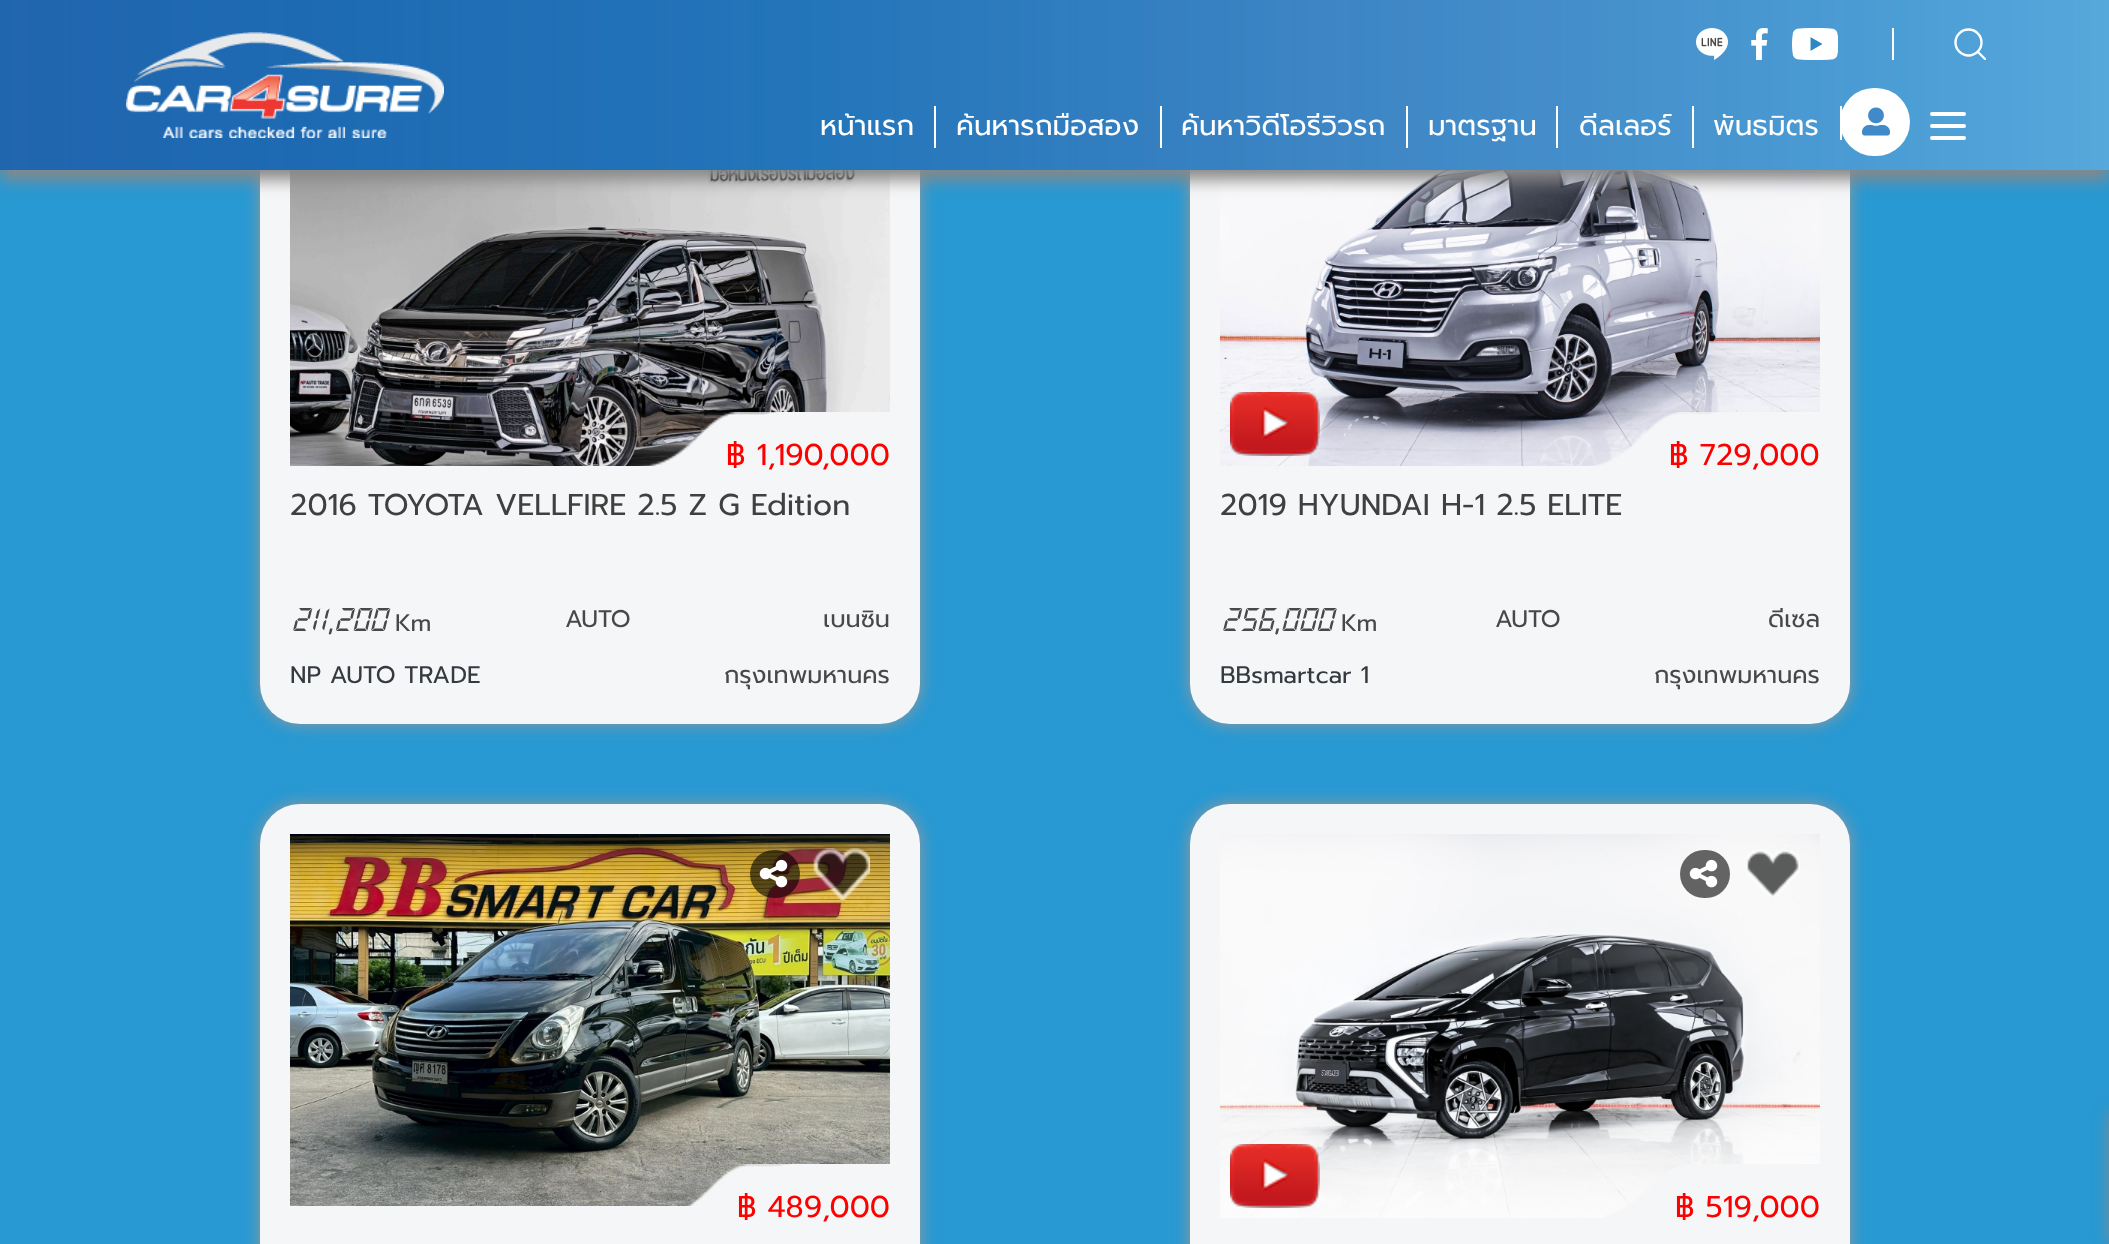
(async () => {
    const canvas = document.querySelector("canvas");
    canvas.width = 2109;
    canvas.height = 1244;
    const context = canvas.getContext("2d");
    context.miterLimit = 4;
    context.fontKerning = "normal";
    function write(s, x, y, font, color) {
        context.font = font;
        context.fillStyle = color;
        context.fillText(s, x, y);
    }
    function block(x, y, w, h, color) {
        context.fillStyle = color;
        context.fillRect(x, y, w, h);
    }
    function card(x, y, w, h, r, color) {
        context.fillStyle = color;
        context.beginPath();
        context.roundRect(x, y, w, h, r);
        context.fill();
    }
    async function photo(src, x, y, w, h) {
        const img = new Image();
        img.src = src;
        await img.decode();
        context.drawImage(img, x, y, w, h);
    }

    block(0, 0, 2109, 1244, "rgb(40, 153, 211)");
    context.fillStyle = "rgb(153, 153, 153)";
    context.filter = "blur(8px)";
    context.beginPath();
    context.roundRect(260, 52, 660, 672, 40);
    context.fill();
    context.filter = "none";
    card(260, 52, 660, 672, 40, "rgb(245, 246, 247)");
    await photo("media/7.png", 290, 170, 600, 296);
    context.fillStyle = "rgb(153, 153, 153)";
    context.filter = "blur(8px)";
    context.beginPath();
    context.roundRect(1190, 52, 660, 672, 40);
    context.fill();
    context.filter = "none";
    card(1190, 52, 660, 672, 40, "rgb(245, 246, 247)");
    await photo("media/9.png", 1220, 170, 600, 296);
    context.fillStyle = "rgb(136, 136, 136)";
    context.filter = "blur(8px)";
    context.beginPath();
    context.rect(0, 10, 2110, 170);
    context.fill();
    context.filter = "none";
    await photo("media/1.png", 0, 0, 2109, 170);
    await photo("media/2.png", 126, 32, 318, 106);
    await photo("media/3.png", 1696, 28, 32, 32);
    await photo("media/4.png", 1751, 28, 17, 32);
    await photo("media/5.png", 1792, 28, 46, 32);
    block(1892, 28, 2, 32, "rgb(255, 255, 255)");
    context.beginPath();
    context.arc(1968.5, 42.5, 13, 0, Math.PI * 2);
    context.strokeStyle = "rgb(255, 255, 255)";
    context.lineWidth = 2.4;
    context.stroke();
    context.save();
    context.beginPath();
    context.rect(1954, 28, 32, 32);
    context.clip();
    context.beginPath();
    context.moveTo(1985, 59);
    context.lineTo(1978, 52);
    context.lineCap = "round";
    context.stroke();
    context.restore();
    write("หน้าแรก", 820, 135, "28px Prompt", "rgb(255, 255, 255)");
    block(934, 106, 2, 42, "rgb(255, 255, 255)");
    write("ค้นหารถมือสอง", 956, 135, "28px Prompt", "rgb(255, 255, 255)");
    block(1160, 106, 2, 42, "rgb(255, 255, 255)");
    write("ค้นหาวิดีโอรีวิวรถ", 1181, 135, "28px Prompt", "rgb(255, 255, 255)");
    block(1406, 106, 2, 42, "rgb(255, 255, 255)");
    write("มาตรฐาน", 1428, 135, "28px Prompt", "rgb(255, 255, 255)");
    block(1556, 106, 2, 42, "rgb(255, 255, 255)");
    write("ดีลเลอร์", 1579, 135, "28px Prompt", "rgb(255, 255, 255)");
    block(1692, 106, 2, 42, "rgb(255, 255, 255)");
    write("พันธมิตร", 1713, 135, "28px Prompt", "rgb(255, 255, 255)");
    card(1840, 88, 70, 68, 34, "rgb(255, 255, 255)");
    block(1840, 106, 2, 34, "rgb(255, 255, 255)");
    await photo("media/6.png", 1862, 107, 28, 29);
    card(1930, 124, 36, 4, 2, "rgb(255, 255, 255)");
    card(1930, 112, 36, 4, 2, "rgb(255, 255, 255)");
    card(1930, 136, 36, 4, 2, "rgb(255, 255, 255)");
    context.fillStyle = "rgb(245, 246, 247)";
    context.beginPath();
    context.roundRect(726, 412, 164, 56, [56, 0, 0, 0]);
    context.fill();
    await photo("media/8.png", 639, 412, 141, 54);
    write("฿ 1,190,000", 726, 465, "30px Prompt", "rgb(255, 0, 0)");
    write("2016 TOYOTA VELLFIRE 2.5 Z G Edition", 290, 515, "30px Prompt", "rgb(64, 64, 64)");
    write("211,200", 291, 631, "italic 36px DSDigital", "rgb(72, 72, 72)");
    write("Km", 395, 631, "24px Prompt", "rgb(72, 72, 72)");
    write("AUTO", 565, 627, "24px Prompt", "rgb(72, 72, 72)");
    write("เบนซิน", 823, 627, "24px Prompt", "rgb(72, 72, 72)");
    write("NP AUTO TRADE", 290, 683, "24px Prompt", "rgb(52, 58, 64)");
    write("กรุงเทพมหานคร", 724, 683, "24px Prompt", "rgb(72, 72, 72)");
    await photo("media/10.png", 1230, 392, 90, 64);
    context.fillStyle = "rgb(245, 246, 247)";
    context.beginPath();
    context.roundRect(1670, 412, 150, 56, [56, 0, 0, 0]);
    context.fill();
    await photo("media/11.png", 1590, 412, 129, 54);
    write("฿ 729,000", 1669, 465, "30px Prompt", "rgb(255, 0, 0)");
    write("2019 HYUNDAI H-1 2.5 ELITE", 1220, 515, "30px Prompt", "rgb(64, 64, 64)");
    write("256,000", 1221, 631, "italic 36px DSDigital", "rgb(72, 72, 72)");
    write("Km", 1341, 631, "24px Prompt", "rgb(72, 72, 72)");
    write("AUTO", 1495, 627, "24px Prompt", "rgb(72, 72, 72)");
    write("ดีเซล", 1768, 627, "24px Prompt", "rgb(72, 72, 72)");
    write("BBsmartcar 1", 1220, 683, "24px Prompt", "rgb(52, 58, 64)");
    write("กรุงเทพมหานคร", 1654, 683, "24px Prompt", "rgb(72, 72, 72)");
    context.fillStyle = "rgb(153, 153, 153)";
    context.filter = "blur(8px)";
    context.beginPath();
    context.roundRect(260, 804, 660, 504, 40);
    context.fill();
    context.filter = "none";
    card(260, 804, 660, 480, 40, "rgb(245, 246, 247)");
    await photo("media/12.png", 290, 834, 600, 372);
    card(750, 850, 50, 48, 24, "rgba(0, 0, 0, 0.6)");
    await photo("media/13.png", 759, 859, 29, 29);
    await photo("media/14.png", 813, 848, 57, 52);
    context.fillStyle = "rgb(245, 246, 247)";
    context.beginPath();
    context.roundRect(738, 1164, 152, 56, [56, 0, 0, 0]);
    context.fill();
    await photo("media/15.png", 686, 1164, 107, 42);
    write("฿ 489,000", 737, 1217, "30px Prompt", "rgb(255, 0, 0)");
    context.fillStyle = "rgb(153, 153, 153)";
    context.filter = "blur(8px)";
    context.beginPath();
    context.roundRect(1190, 804, 660, 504, 40);
    context.fill();
    context.filter = "none";
    card(1190, 804, 660, 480, 40, "rgb(245, 246, 247)");
    await photo("media/16.png", 1220, 834, 600, 384);
    card(1680, 850, 50, 48, 24, "rgba(0, 0, 0, 0.6)");
    await photo("media/17.png", 1689, 859, 29, 29);
    await photo("media/18.png", 1747, 850, 53, 47);
    await photo("media/19.png", 1230, 1144, 90, 64);
    context.fillStyle = "rgb(245, 246, 247)";
    context.beginPath();
    context.roundRect(1676, 1164, 144, 56, [56, 0, 0, 0]);
    context.fill();
    await photo("media/20.png", 1604, 1164, 118, 54);
    write("฿ 519,000", 1675, 1217, "30px Prompt", "rgb(255, 0, 0)");
    context.fillStyle = "rgb(136, 136, 136)";
    context.filter = "blur(8px)";
    context.beginPath();
    context.rect(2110, 1112, 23, 130);
    context.fill();
    context.filter = "none";
})();
